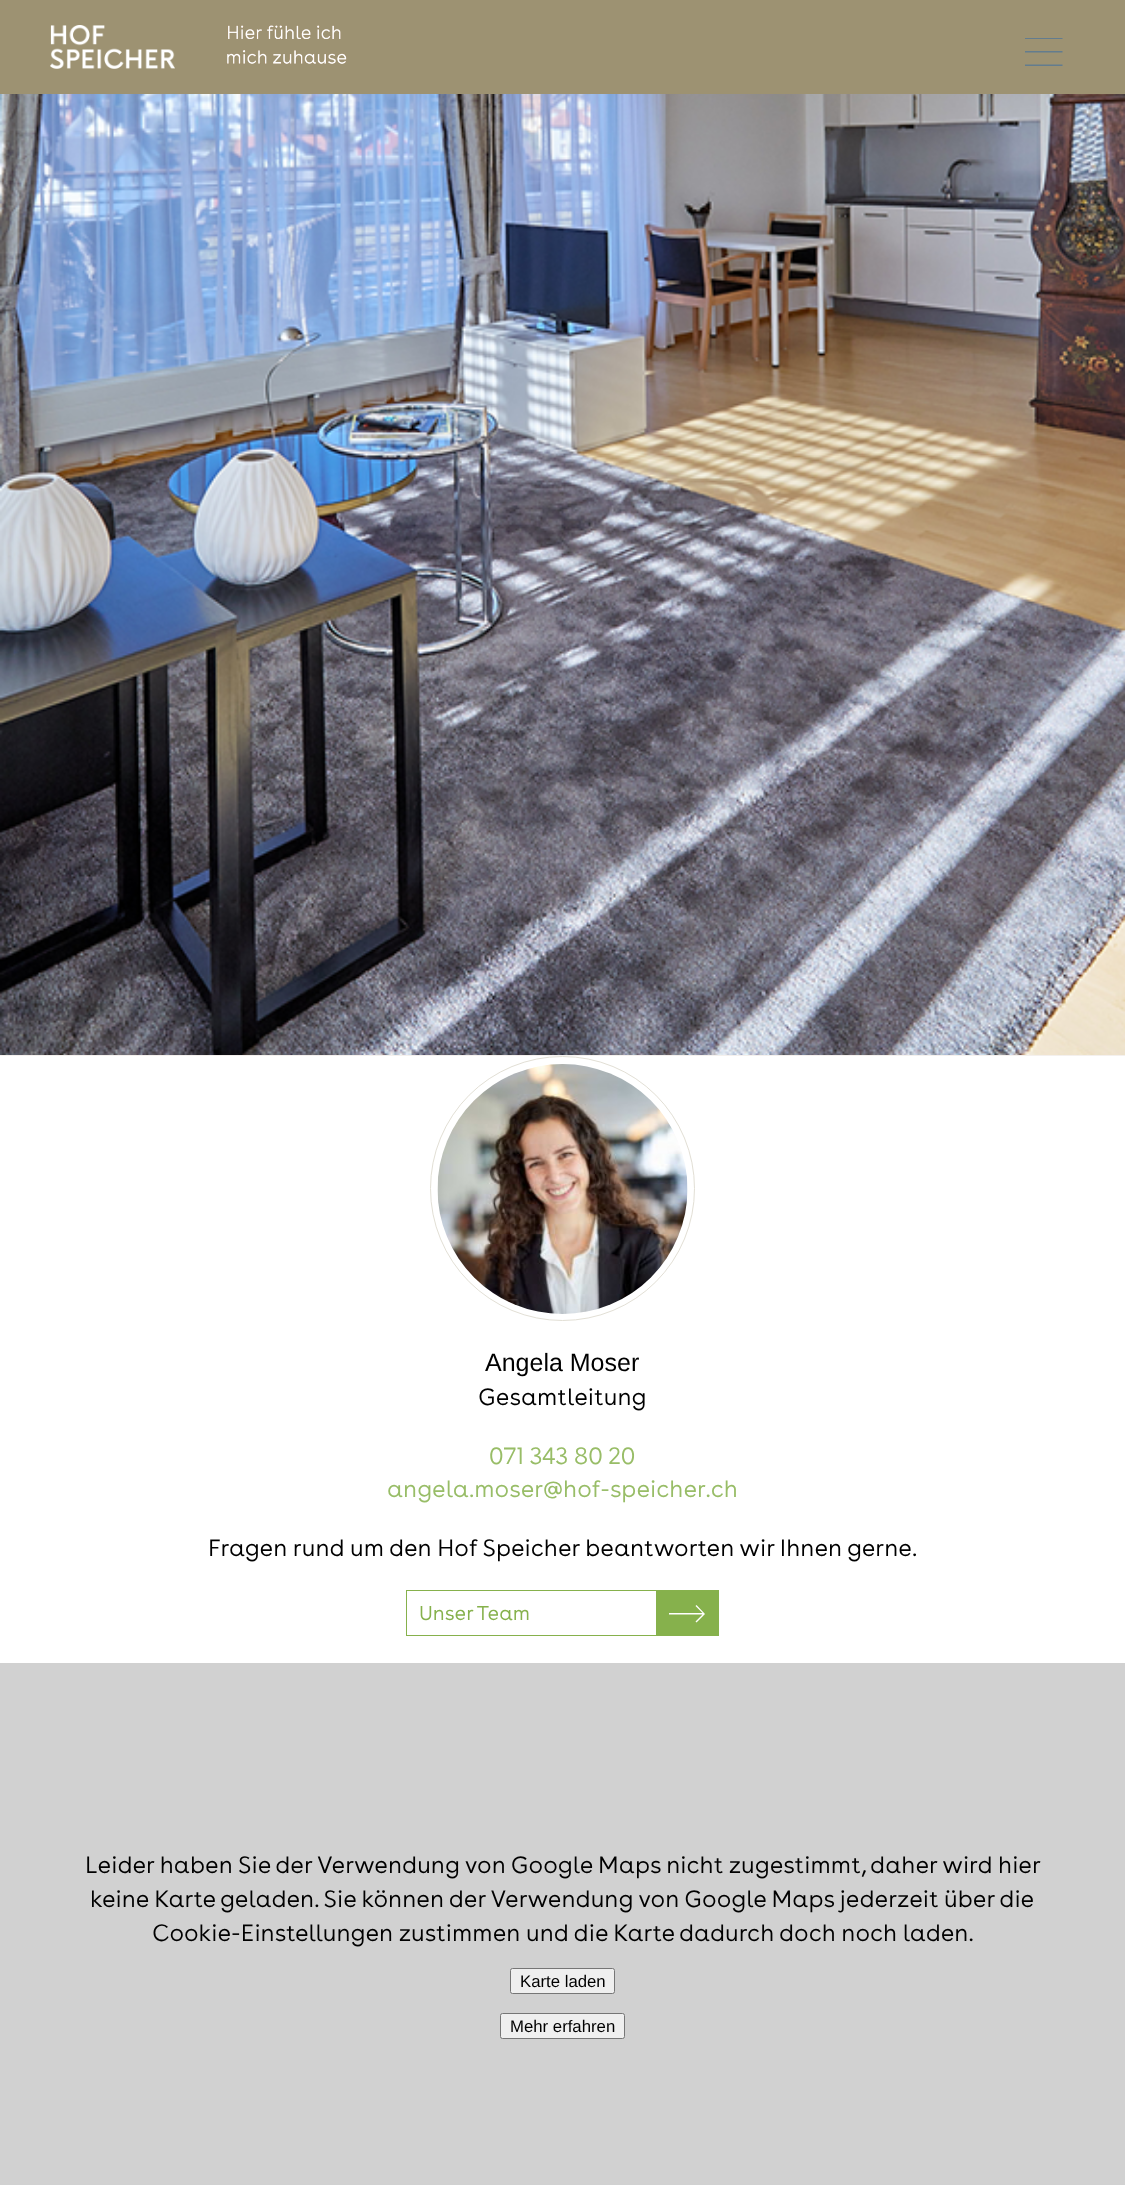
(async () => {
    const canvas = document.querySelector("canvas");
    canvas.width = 1125;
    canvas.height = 2185;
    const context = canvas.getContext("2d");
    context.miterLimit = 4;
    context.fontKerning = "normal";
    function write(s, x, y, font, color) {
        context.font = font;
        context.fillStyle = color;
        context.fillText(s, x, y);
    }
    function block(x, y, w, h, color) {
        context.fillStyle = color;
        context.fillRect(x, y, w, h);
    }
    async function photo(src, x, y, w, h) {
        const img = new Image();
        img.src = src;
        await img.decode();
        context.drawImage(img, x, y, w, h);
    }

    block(0, 0, 1125, 2185, "rgb(255, 255, 255)");
    block(0, 0, 1125, 94, "rgb(157, 146, 114)");
    await photo("media/1.png", 50, 25, 125, 44);
    await photo("media/2.png", 226, 25, 121, 39);
    context.fillStyle = "rgb(99, 124, 142)";
    context.beginPath();
    context.moveTo(1062.5, 51);
    context.lineTo(1062.5, 52.5);
    context.lineTo(1025, 52.5);
    context.lineTo(1025, 51);
    context.closePath();
    context.moveTo(1062.5, 64.5);
    context.lineTo(1062.5, 66);
    context.lineTo(1025, 66);
    context.lineTo(1025, 64.5);
    context.closePath();
    context.moveTo(1062.5, 38);
    context.lineTo(1062.5, 39);
    context.lineTo(1025, 39);
    context.lineTo(1025, 38);
    context.closePath();
    context.fill();
    await photo("media/3.png", 0, 94, 1125, 961);
    block(0, 1055, 1125, 1, "rgb(244, 240, 237)");
    context.beginPath();
    context.arc(562.5, 1188.5, 132, 0, Math.PI * 2);
    context.strokeStyle = "rgb(226, 223, 213)";
    context.stroke();
    await photo("media/4.png", 437, 1064, 251, 250);
    write("Angela Moser", 485, 1371, "25px Liberation Sans", "rgb(0, 0, 0)");
    write("Gesamtleitung", 478, 1405, "300 25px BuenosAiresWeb", "rgb(0, 0, 0)");
    write("071 343 80 20", 489, 1464, "300 25px BuenosAiresWeb", "rgb(152, 189, 103)");
    write("angela.moser@hof-speicher.ch", 387, 1497, "300 25px BuenosAiresWeb", "rgb(152, 189, 103)");
    write("Fragen rund um den Hof Speicher beantworten wir Ihnen gerne.", 208, 1556, "300 25px BuenosAiresWeb", "rgb(0, 0, 0)");
    context.strokeStyle = "rgb(134, 177, 76)";
    context.strokeRect(406.5, 1590.5, 253, 45);
    write("Unser Team", 419, 1620, "300 21.25px BuenosAiresWeb", "rgb(134, 177, 76)");
    block(656, 1590, 63, 46, "rgb(134, 177, 76)");
    context.fillStyle = "rgb(255, 255, 255)";
    context.beginPath();
    context.moveTo(696.5, 1605);
    context.lineTo(705, 1614);
    context.lineTo(696.5, 1622.5);
    context.lineTo(695.5, 1621.5);
    context.lineTo(702.5, 1614.5);
    context.lineTo(669, 1614.5);
    context.lineTo(669, 1613);
    context.lineTo(702.5, 1613);
    context.lineTo(695.5, 1606);
    context.closePath();
    context.fill();
    block(0, 1663, 1125, 522, "rgb(209, 209, 209)");
    write("Leider haben Sie der Verwendung von Google Maps nicht zugestimmt, daher wird hier", 85, 1873, "300 25px BuenosAiresWeb", "rgb(0, 0, 0)");
    write("keine Karte geladen. Sie können der Verwendung von Google Maps jederzeit über die", 90, 1907, "300 25px BuenosAiresWeb", "rgb(0, 0, 0)");
    write("Cookie-Einstellungen zustimmen und die Karte dadurch doch noch laden.", 152, 1941, "300 25px BuenosAiresWeb", "rgb(0, 0, 0)");
    context.fillStyle = "rgb(239, 239, 239)";
    context.beginPath();
    context.roundRect(510.5, 1968.5, 104, 25, 2);
    context.fill();
    context.strokeStyle = "rgb(118, 118, 118)";
    context.stroke();
    write("Karte laden", 520, 1987, "16.75px Liberation Sans", "rgb(0, 0, 0)");
    context.fillStyle = "rgb(239, 239, 239)";
    context.beginPath();
    context.roundRect(500.5, 2013.5, 124, 25, 2);
    context.fill();
    context.stroke();
    write("Mehr erfahren", 510, 2032, "16.75px Liberation Sans", "rgb(0, 0, 0)");
})();
